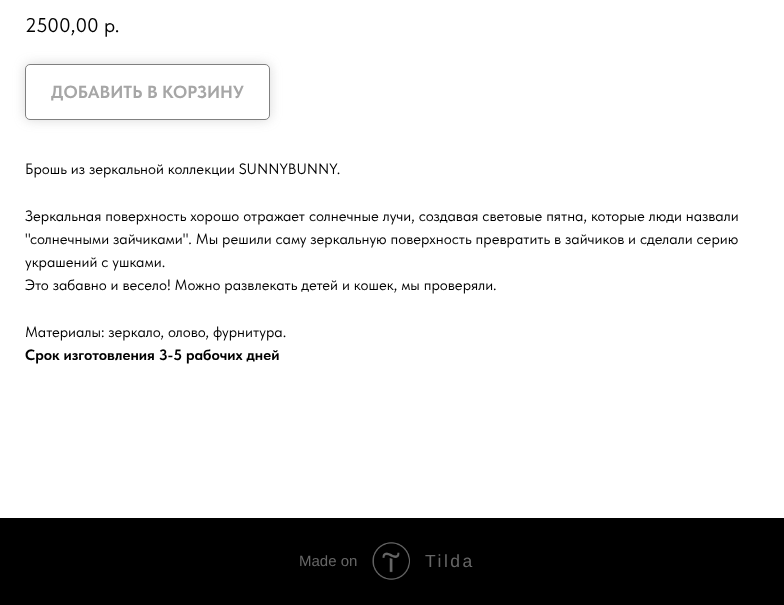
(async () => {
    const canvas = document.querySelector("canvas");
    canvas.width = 784;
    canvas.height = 605;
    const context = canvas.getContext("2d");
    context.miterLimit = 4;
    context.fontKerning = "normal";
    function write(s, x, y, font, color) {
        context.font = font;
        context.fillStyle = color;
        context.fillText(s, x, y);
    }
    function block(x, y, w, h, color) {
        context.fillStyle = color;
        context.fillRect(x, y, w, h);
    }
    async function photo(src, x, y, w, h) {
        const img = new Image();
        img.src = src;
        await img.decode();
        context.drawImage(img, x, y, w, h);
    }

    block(0, 0, 784, 605, "rgb(255, 255, 255)");
    write("2500,00", 25, 32, "20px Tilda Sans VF", "rgb(0, 0, 0)");
    write("р.", 104, 32, "20px Tilda Sans VF", "rgb(0, 0, 0)");
    context.fillStyle = "rgba(128, 128, 128, 0.3)";
    context.filter = "blur(6px)";
    context.beginPath();
    context.roundRect(25, 64, 245, 56, 5);
    context.fill();
    context.filter = "none";
    context.fillStyle = "rgb(255, 255, 255)";
    context.beginPath();
    context.roundRect(25.5, 64.5, 244, 55, 4.5);
    context.fill();
    context.strokeStyle = "rgb(128, 128, 128)";
    context.stroke();
    write("ДОБАВИТЬ В КОРЗИНУ", 51, 98, "bold 17.5px Tilda Sans VF", "rgb(166, 166, 166)");
    write("Брошь из зеркальной коллекции SUNNYBUNNY.", 25, 174, "15px Tilda Sans VF", "rgb(0, 0, 0)");
    write("Зеркальная поверхность хорошо отражает солнечные лучи, создавая световые пятна, которые люди назвали", 25, 221, "15px Tilda Sans VF", "rgb(0, 0, 0)");
    write("\"солнечными зайчиками\". Мы решили саму зеркальную поверхность превратить в зайчиков и сделали серию", 25, 244, "15px Tilda Sans VF", "rgb(0, 0, 0)");
    write("украшений с ушками.", 25, 267, "15px Tilda Sans VF", "rgb(0, 0, 0)");
    write("Это забавно и весело! Можно развлекать детей и кошек, мы проверяли.", 25, 290, "15px Tilda Sans VF", "rgb(0, 0, 0)");
    write("Материалы: зеркало, олово, фурнитура.", 25, 337, "15px Tilda Sans VF", "rgb(0, 0, 0)");
    write("Срок изготовления 3-5 рабочих дней", 25, 360, "bold 15px Tilda Sans VF", "rgb(0, 0, 0)");
    block(0, 518, 784, 87, "rgb(0, 0, 0)");
    write("Made on", 299, 566, "15px Liberation Sans", "rgb(102, 102, 102)");
    await photo("media/1.png", 372, 542, 38, 38);
    context.letterSpacing = "2.5px";
    write("Tilda", 425, 567, "17.5px Liberation Sans", "rgb(102, 102, 102)");
})();
